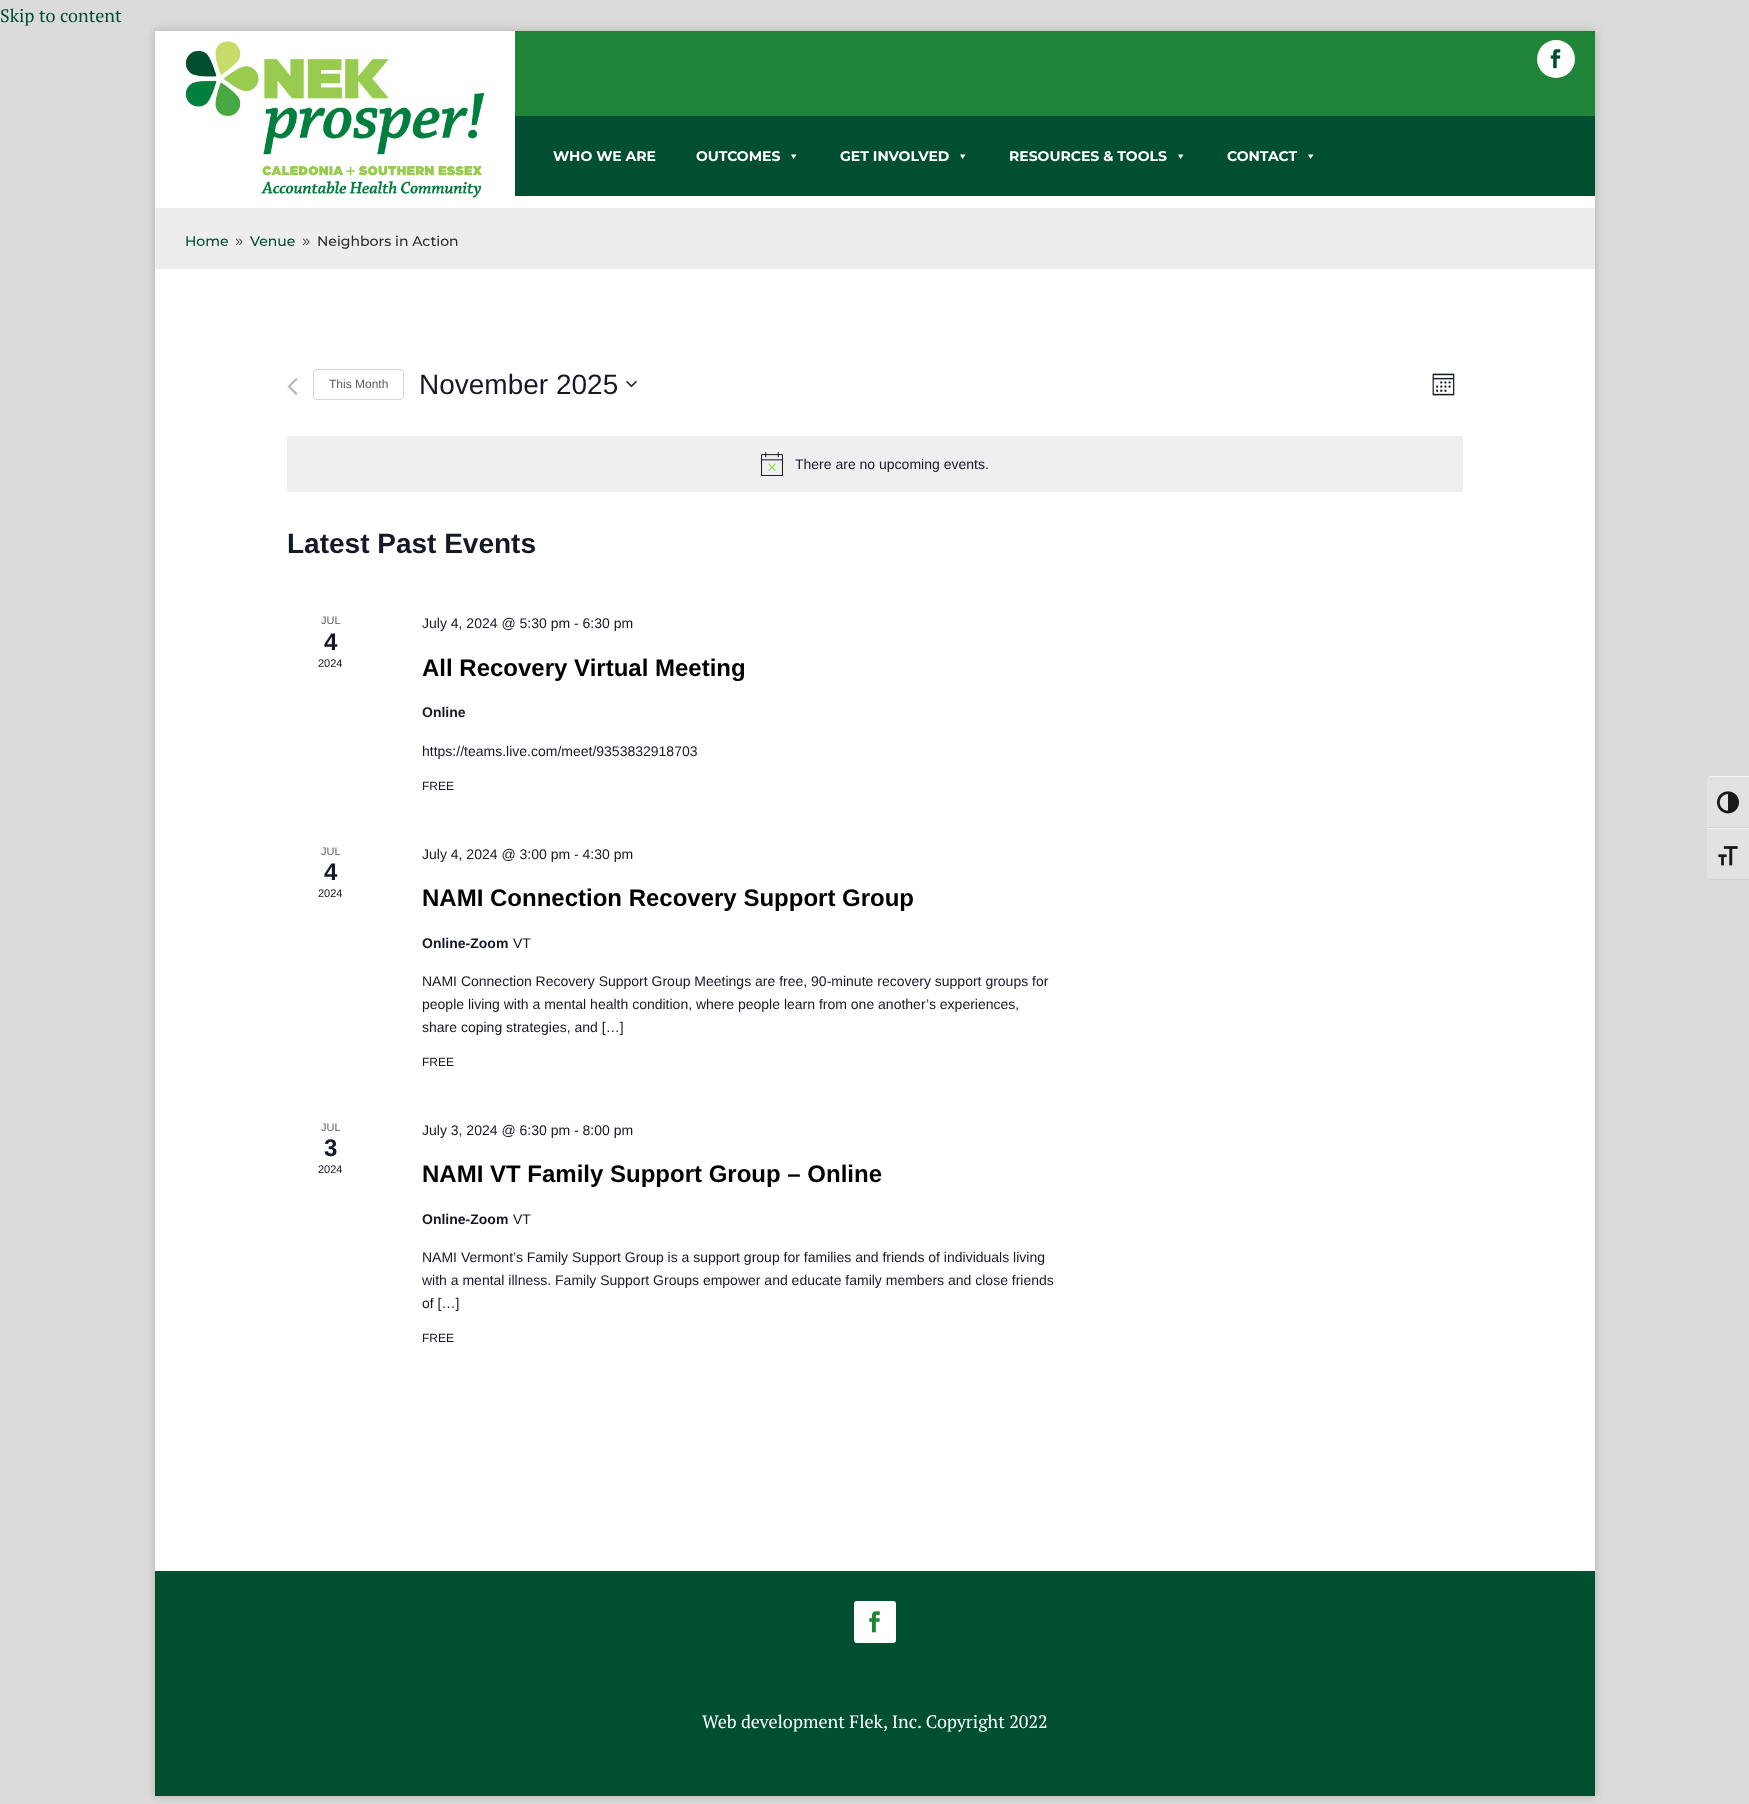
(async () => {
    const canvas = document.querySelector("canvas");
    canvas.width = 1749;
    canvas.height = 1804;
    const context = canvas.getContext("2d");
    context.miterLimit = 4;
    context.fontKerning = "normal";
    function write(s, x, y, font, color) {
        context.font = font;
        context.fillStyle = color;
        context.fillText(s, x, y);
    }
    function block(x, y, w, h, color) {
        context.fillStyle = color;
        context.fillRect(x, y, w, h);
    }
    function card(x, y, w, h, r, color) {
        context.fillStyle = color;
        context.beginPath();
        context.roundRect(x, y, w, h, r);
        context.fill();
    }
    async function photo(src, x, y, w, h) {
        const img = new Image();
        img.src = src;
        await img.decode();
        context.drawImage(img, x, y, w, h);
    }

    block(0, 0, 1749, 1804, "rgb(219, 219, 219)");
    write("Skip to content", 0, 22, "18px PT Serif", "rgb(0, 79, 48)");
    context.fillStyle = "rgba(0, 0, 0, 0.2)";
    context.filter = "blur(5px)";
    context.beginPath();
    context.rect(155, 31, 1440, 1765);
    context.fill();
    context.filter = "none";
    block(155, 31, 1440, 177, "rgb(255, 255, 255)");
    await photo("media/1.png", 185, 41, 300, 157);
    block(515, 116, 1080, 80, "rgb(0, 79, 48)");
    block(515, 31, 1080, 85, "rgb(31, 132, 55)");
    context.fillStyle = "rgb(255, 255, 255)";
    context.beginPath();
    context.arc(1556, 59, 19, 0, Math.PI * 2);
    context.fill();
    await photo("media/2.png", 1550, 49, 11, 20);
    write("WHO WE ARE", 553, 161, "bold 14px Montserrat", "rgb(255, 255, 255)");
    write("OUTCOMES", 696, 161, "bold 14px Montserrat", "rgb(255, 255, 255)");
    context.beginPath();
    context.moveTo(796.5, 154.5);
    context.lineTo(793.5, 159);
    context.lineTo(791, 154.5);
    context.closePath();
    context.fill();
    write("GET INVOLVED", 840, 161, "bold 14px Montserrat", "rgb(255, 255, 255)");
    context.beginPath();
    context.moveTo(965.5, 154.5);
    context.lineTo(962.5, 159);
    context.lineTo(960, 154.5);
    context.closePath();
    context.fill();
    write("RESOURCES & TOOLS", 1009, 161, "bold 14px Montserrat", "rgb(255, 255, 255)");
    context.beginPath();
    context.moveTo(1183.5, 154.5);
    context.lineTo(1180.5, 159);
    context.lineTo(1178, 154.5);
    context.closePath();
    context.fill();
    write("CONTACT", 1227, 161, "bold 14px Montserrat", "rgb(255, 255, 255)");
    context.beginPath();
    context.moveTo(1313.5, 154.5);
    context.lineTo(1310.5, 159);
    context.lineTo(1308, 154.5);
    context.closePath();
    context.fill();
    block(155, 208, 1440, 61, "rgb(237, 237, 237)");
    write("Home", 185, 246, "100 14px Montserrat", "rgb(0, 79, 48)");
    await photo("media/3.png", 235, 238, 8, 8);
    write("Venue", 250, 246, "100 14px Montserrat", "rgb(0, 79, 48)");
    await photo("media/3.png", 302, 238, 8, 8);
    write("Neighbors in Action", 317, 246, "100 14px Montserrat", "rgb(45, 45, 45)");
    block(155, 269, 1440, 1302, "rgb(255, 255, 255)");
    await photo("media/4.png", 287, 378, 11, 17);
    context.beginPath();
    context.roundRect(313.5, 369.5, 90, 30, 3.5);
    context.strokeStyle = "rgb(213, 213, 213)";
    context.stroke();
    write("This Month", 329, 388, "12px Liberation Sans", "rgb(93, 93, 93)");
    write("November 2025", 419, 394, "28px Liberation Sans", "rgb(20, 24, 39)");
    await photo("media/5.png", 626, 380, 11, 8);
    await photo("media/6.png", 1432, 373, 23, 23);
    card(287, 436, 1176, 56, 4, "rgb(239, 239, 240)");
    await photo("media/7.png", 761, 452, 22, 24);
    write("There are no upcoming events.", 795, 469, "14px Liberation Sans", "rgb(20, 24, 39)");
    write("Latest Past Events", 287, 553, "bold 28px Liberation Sans", "rgb(20, 24, 39)");
    write("JUL", 321, 624, "11px Liberation Sans", "rgb(93, 93, 93)");
    write("4", 324, 650, "bold 24px Liberation Sans", "rgb(20, 24, 39)");
    write("2024", 318, 667, "11px Liberation Sans", "rgb(20, 24, 39)");
    write("July 4, 2024 @ 5:30 pm - 6:30 pm", 422, 628, "14px Liberation Sans", "rgb(20, 24, 39)");
    write("All Recovery Virtual Meeting", 422, 676, "bold 24px Liberation Sans", "rgb(0, 0, 0)");
    write("Online", 422, 717, "bold 14px Liberation Sans", "rgb(20, 24, 39)");
    write("https://teams.live.com/meet/9353832918703", 422, 756, "14px Liberation Sans", "rgb(20, 24, 39)");
    write("FREE", 422, 790, "12px Liberation Sans", "rgb(20, 24, 39)");
    write("JUL", 321, 855, "11px Liberation Sans", "rgb(93, 93, 93)");
    write("4", 324, 880, "bold 24px Liberation Sans", "rgb(20, 24, 39)");
    write("2024", 318, 897, "11px Liberation Sans", "rgb(20, 24, 39)");
    write("July 4, 2024 @ 3:00 pm - 4:30 pm", 422, 859, "14px Liberation Sans", "rgb(20, 24, 39)");
    write("NAMI Connection Recovery Support Group", 422, 906, "bold 24px Liberation Sans", "rgb(0, 0, 0)");
    write("Online-Zoom", 422, 948, "bold 14px Liberation Sans", "rgb(20, 24, 39)");
    write("VT", 513, 948, "14px Liberation Sans", "rgb(20, 24, 39)");
    write("NAMI Connection Recovery Support Group Meetings are free, 90-minute recovery support groups for", 422, 986, "14px Liberation Sans", "rgb(20, 24, 39)");
    write("people living with a mental health condition, where people learn from one another’s experiences,", 422, 1009, "14px Liberation Sans", "rgb(20, 24, 39)");
    write("share coping strategies, and […]", 422, 1032, "14px Liberation Sans", "rgb(20, 24, 39)");
    write("FREE", 422, 1066, "12px Liberation Sans", "rgb(20, 24, 39)");
    write("JUL", 321, 1131, "11px Liberation Sans", "rgb(93, 93, 93)");
    write("3", 324, 1156, "bold 24px Liberation Sans", "rgb(20, 24, 39)");
    write("2024", 318, 1173, "11px Liberation Sans", "rgb(20, 24, 39)");
    write("July 3, 2024 @ 6:30 pm - 8:00 pm", 422, 1135, "14px Liberation Sans", "rgb(20, 24, 39)");
    write("NAMI VT Family Support Group – Online", 422, 1182, "bold 24px Liberation Sans", "rgb(0, 0, 0)");
    write("Online-Zoom", 422, 1224, "bold 14px Liberation Sans", "rgb(20, 24, 39)");
    write("VT", 513, 1224, "14px Liberation Sans", "rgb(20, 24, 39)");
    write("NAMI Vermont’s Family Support Group is a support group for families and friends of individuals living", 422, 1262, "14px Liberation Sans", "rgb(20, 24, 39)");
    write("with a mental illness. Family Support Groups empower and educate family members and close friends", 422, 1285, "14px Liberation Sans", "rgb(20, 24, 39)");
    write("of […]", 422, 1308, "14px Liberation Sans", "rgb(20, 24, 39)");
    write("FREE", 422, 1342, "12px Liberation Sans", "rgb(20, 24, 39)");
    block(155, 1571, 1440, 225, "rgb(0, 79, 48)");
    card(854, 1601, 42, 42, 3, "rgb(255, 255, 255)");
    await photo("media/8.png", 869, 1611, 11, 22);
    write("Web development Flek, Inc. Copyright 2022", 702, 1728, "18px PT Serif", "rgb(255, 255, 255)");
    context.fillStyle = "rgb(226, 226, 226)";
    context.beginPath();
    context.roundRect(1707, 776, 42, 52, [4, 0, 0, 0]);
    context.fill();
    context.fillStyle = "rgb(245, 245, 245)";
    context.beginPath();
    context.moveTo(1711, 777);
    context.lineTo(1749, 777);
    context.lineTo(1749, 776);
    context.lineTo(1711, 776);
    context.bezierCurveTo(1709, 776, 1707, 778, 1707, 780);
    context.bezierCurveTo(1707, 778, 1709, 777, 1711, 777);
    context.closePath();
    context.fill();
    block(1707, 827, 42, 1, "rgb(210, 210, 210)");
    await photo("media/9.png", 1717, 791, 22, 23);
    context.fillStyle = "rgb(226, 226, 226)";
    context.beginPath();
    context.roundRect(1707, 828, 42, 52, [0, 0, 0, 4]);
    context.fill();
    block(1707, 828, 42, 1, "rgb(245, 245, 245)");
    context.fillStyle = "rgb(210, 210, 210)";
    context.beginPath();
    context.moveTo(1749, 880);
    context.lineTo(1749, 879);
    context.lineTo(1711, 879);
    context.bezierCurveTo(1709, 879, 1707, 878, 1707, 876);
    context.bezierCurveTo(1707, 878, 1709, 880, 1711, 880);
    context.closePath();
    context.fill();
    await photo("media/10.png", 1718, 846, 20, 20);
})();
